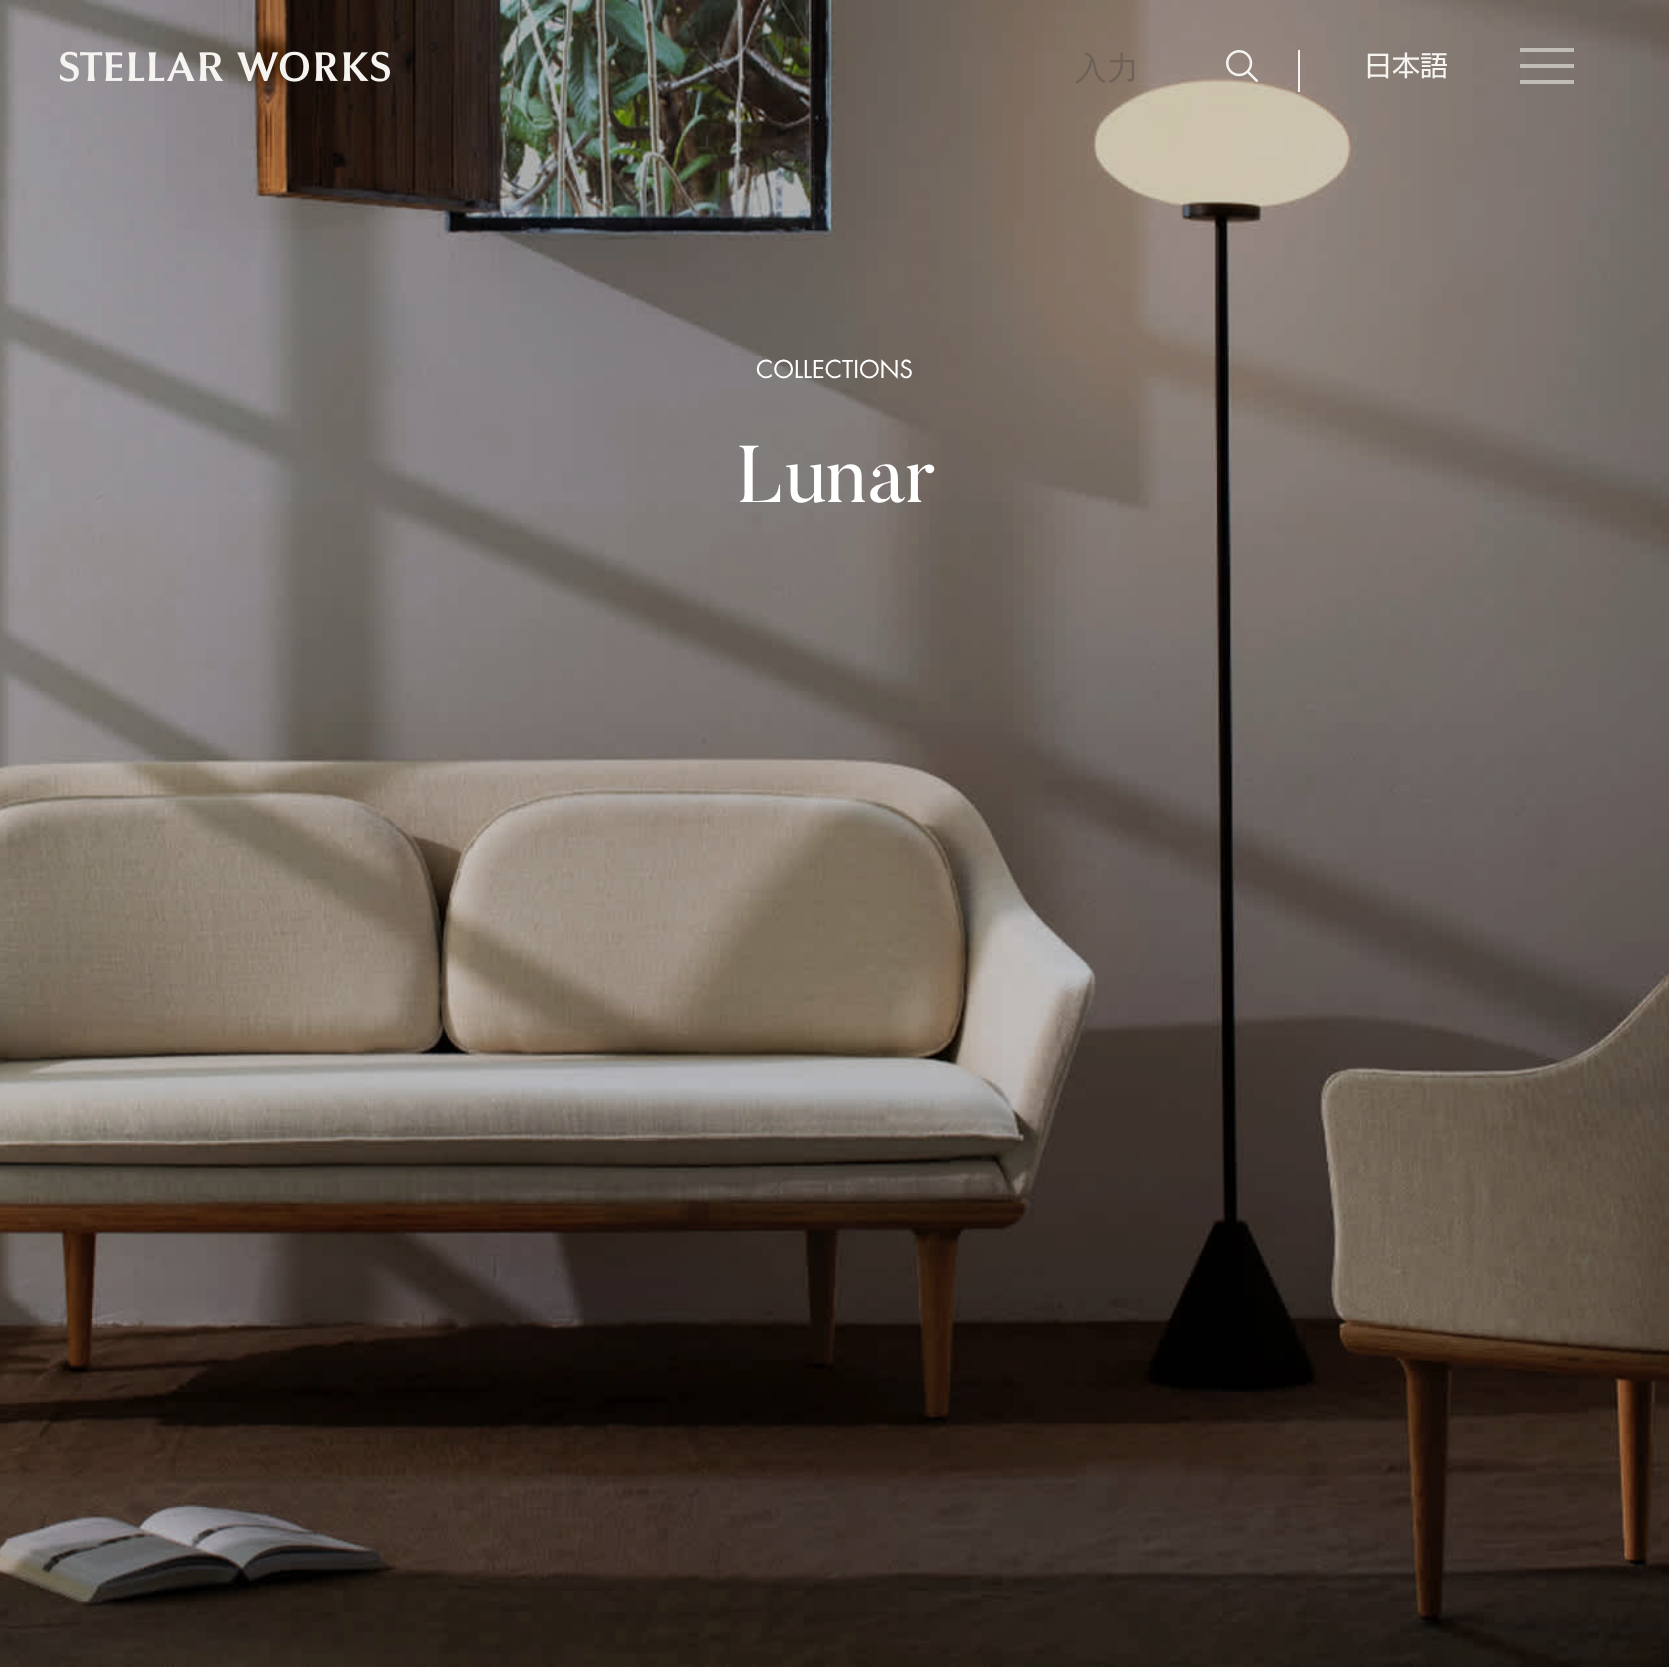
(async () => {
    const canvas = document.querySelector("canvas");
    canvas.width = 1669;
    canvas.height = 1667;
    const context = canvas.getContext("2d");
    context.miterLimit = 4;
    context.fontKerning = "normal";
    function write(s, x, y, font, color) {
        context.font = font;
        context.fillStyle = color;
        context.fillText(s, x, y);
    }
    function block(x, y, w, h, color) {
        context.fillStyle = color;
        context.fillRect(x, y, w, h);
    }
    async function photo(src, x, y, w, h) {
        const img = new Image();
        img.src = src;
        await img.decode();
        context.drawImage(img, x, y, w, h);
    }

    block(0, 0, 1669, 1667, "rgb(255, 255, 255)");
    await photo("media/3.png", 0, 0, 1669, 1667);
    await photo("media/1.png", 60, 51, 330, 31);
    block(1298, 50, 2, 42, "rgb(245, 244, 241)");
    write("入力", 1075, 79, "500 32px WenQuanYi Zen Hei", "rgb(110, 98, 88)");
    await photo("media/2.png", 1226, 50, 32, 32);
    write("日本語", 1364, 76, "28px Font", "rgb(245, 244, 241)");
    block(1520, 64, 54, 4, "rgba(245, 244, 241, 0.56)");
    block(1520, 48, 54, 4, "rgba(245, 244, 241, 0.56)");
    block(1520, 80, 54, 4, "rgba(245, 244, 241, 0.56)");
    write("COLLECTIONS", 756, 378, "24px Futura", "rgb(255, 255, 255)");
    write("Lunar", 736, 502, "80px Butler", "rgb(255, 255, 255)");
})();
